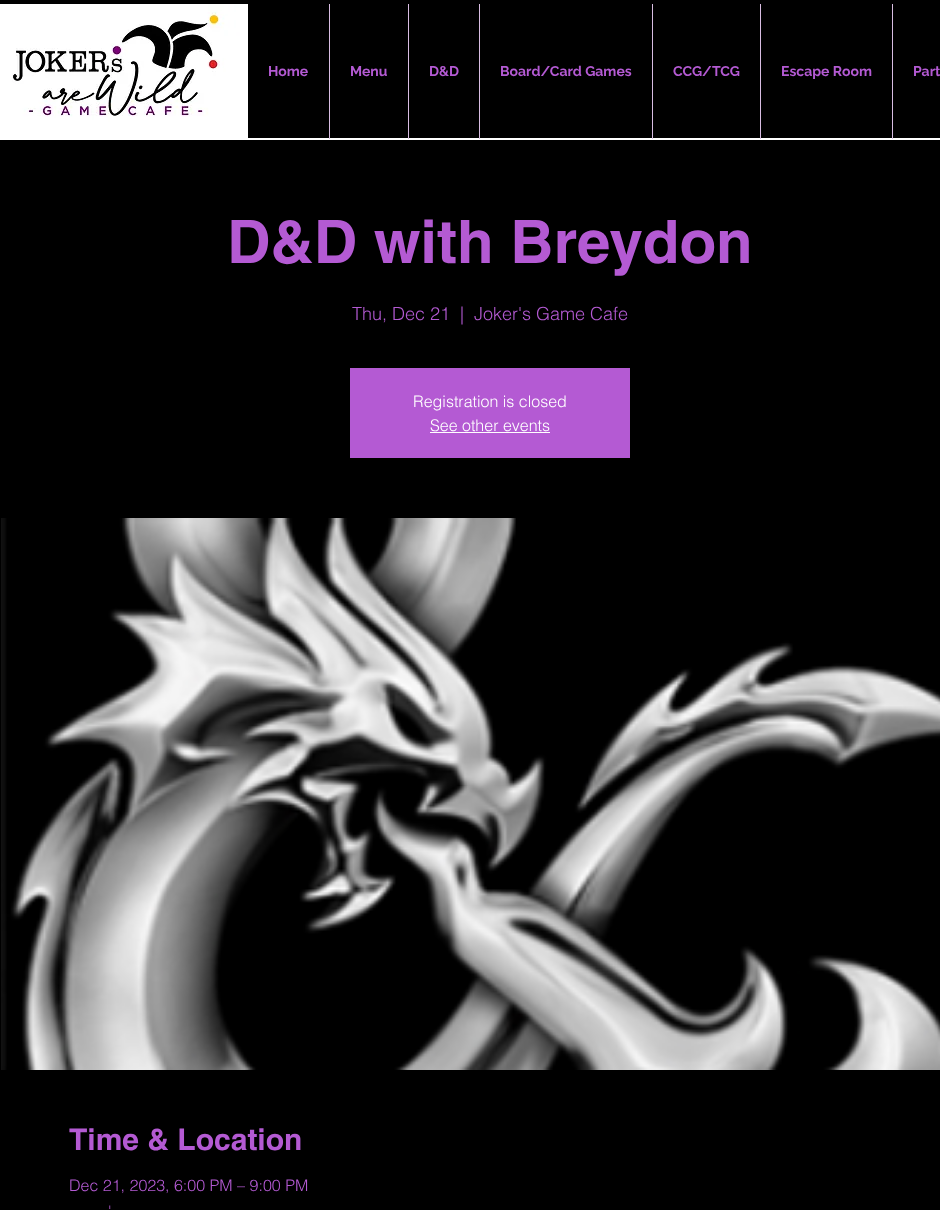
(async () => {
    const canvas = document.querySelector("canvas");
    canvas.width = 940;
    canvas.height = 1210;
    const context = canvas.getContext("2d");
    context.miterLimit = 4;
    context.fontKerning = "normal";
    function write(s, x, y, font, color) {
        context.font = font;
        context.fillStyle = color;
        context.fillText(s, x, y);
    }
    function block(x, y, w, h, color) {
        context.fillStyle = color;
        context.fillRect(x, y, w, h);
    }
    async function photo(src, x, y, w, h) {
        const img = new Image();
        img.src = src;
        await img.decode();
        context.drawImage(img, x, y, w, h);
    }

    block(0, 0, 940, 1210, "rgb(0, 0, 0)");
    await photo("media/1.png", 0, 4, 248, 134);
    write("Home", 268, 76, "bold 14px Raleway", "rgb(180, 90, 211)");
    block(0, 138, 940, 2, "rgb(255, 255, 255)");
    block(329, 4, 1, 135, "rgb(216, 189, 226)");
    write("Menu", 350, 76, "bold 14px Raleway", "rgb(180, 90, 211)");
    block(408, 4, 1, 135, "rgb(216, 189, 226)");
    write("D&D", 429, 76, "bold 14px Raleway", "rgb(180, 90, 211)");
    block(479, 4, 1, 135, "rgb(216, 189, 226)");
    write("Board/Card Games", 500, 76, "bold 14px Raleway", "rgb(180, 90, 211)");
    block(652, 4, 1, 135, "rgb(216, 189, 226)");
    write("CCG/TCG", 673, 76, "bold 14px Raleway", "rgb(180, 90, 211)");
    block(760, 4, 1, 135, "rgb(216, 189, 226)");
    write("Escape Room", 781, 76, "bold 14px Raleway", "rgb(180, 90, 211)");
    block(892, 4, 1, 135, "rgb(216, 189, 226)");
    write("Part", 913, 76, "bold 14px Raleway", "rgb(180, 90, 211)");
    write("D&D with Breydon", 227, 263, "bold 60px helvetica", "rgb(180, 90, 211)");
    write("Thu, Dec 21", 352, 320, "300 18px helvetica", "rgb(180, 90, 211)");
    write("|", 460, 320, "300 18px helvetica", "rgb(180, 90, 211)");
    write("Joker's Game Cafe", 474, 320, "300 18px helvetica", "rgb(180, 90, 211)");
    block(350, 368, 280, 90, "rgb(180, 90, 211)");
    write("Registration is closed", 413, 407, "300 16px helvetica", "rgb(255, 255, 255)");
    write("See other events", 430, 431, "300 16px helvetica", "rgb(255, 255, 255)");
    block(430, 432, 120, 1, "rgb(255, 255, 255)");
    await photo("media/2.png", 1, 518, 939, 552);
    write("Time & Location", 69, 1150, "bold 30px helvetica", "rgb(180, 90, 211)");
    write("Dec 21, 2023, 6:00 PM – 9:00 PM", 69, 1191, "300 16px helvetica", "rgb(180, 90, 211)");
    write("'", 108, 1217, "300 16px helvetica", "rgb(180, 90, 211)");
})();
